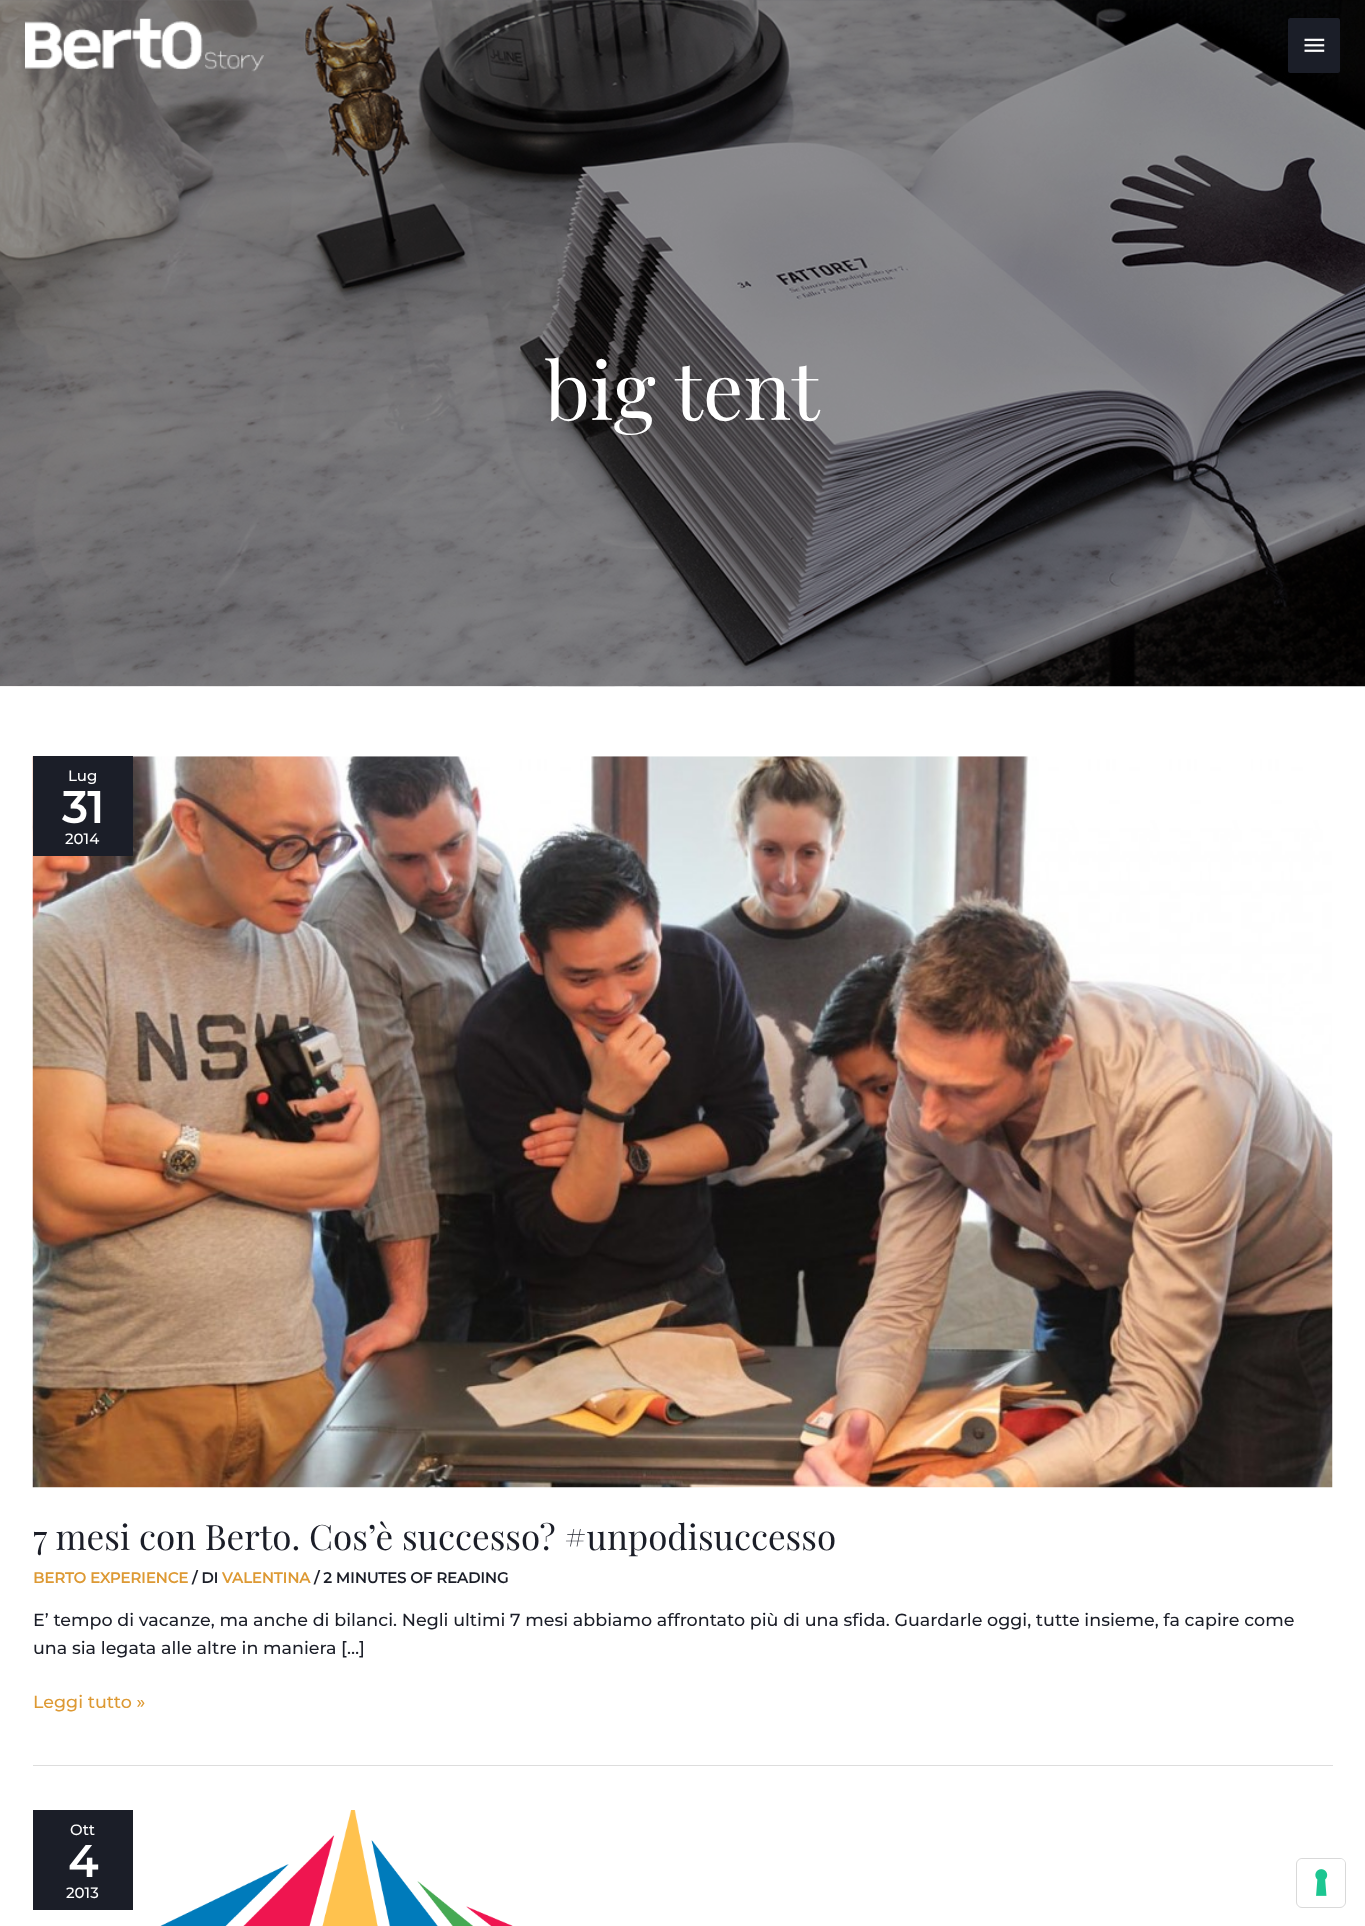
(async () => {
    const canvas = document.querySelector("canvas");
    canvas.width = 1365;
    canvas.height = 1926;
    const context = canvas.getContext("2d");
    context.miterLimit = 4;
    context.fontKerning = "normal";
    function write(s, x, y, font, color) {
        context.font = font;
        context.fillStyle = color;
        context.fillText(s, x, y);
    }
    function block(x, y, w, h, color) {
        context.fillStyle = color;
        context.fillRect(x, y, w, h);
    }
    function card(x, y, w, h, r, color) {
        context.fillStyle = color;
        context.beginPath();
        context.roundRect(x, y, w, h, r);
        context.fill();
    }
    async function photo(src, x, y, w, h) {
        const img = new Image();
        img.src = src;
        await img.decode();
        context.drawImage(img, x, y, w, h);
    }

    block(0, 0, 1365, 1926, "rgb(255, 255, 255)");
    await photo("media/1.png", 0, 0, 1365, 687);
    await photo("media/2.png", 25, 18, 239, 54);
    card(1288, 18, 52, 55, 2.5, "rgb(27, 30, 40)");
    await photo("media/3.png", 1304, 38, 21, 14);
    write("big tent", 545, 420, "80px Playfair Display", "rgb(255, 255, 255)");
    block(33, 1765, 1300, 1, "rgb(221, 221, 221)");
    await photo("media/4.png", 32, 756, 1301, 732);
    block(33, 756, 100, 100, "rgb(27, 30, 40)");
    write("Lug", 68, 781, "100 15px Montserrat", "rgb(255, 255, 255)");
    write("31", 62, 823, "bold 44px Montserrat", "rgb(255, 255, 255)");
    write("2014", 65, 844, "100 15px Montserrat", "rgb(255, 255, 255)");
    write("7 mesi con Berto. Cos’è successo? #unpodisuccesso", 33, 1550, "35px Playfair Display", "rgb(27, 30, 40)");
    write("BERTO EXPERIENCE", 33, 1583, "bold 14.9px Montserrat", "rgb(221, 153, 51)");
    write("/ DI", 192, 1583, "bold 14.9px Montserrat", "rgb(27, 30, 40)");
    write("VALENTINA", 222, 1583, "bold 14.9px Montserrat", "rgb(221, 153, 51)");
    write("/ 2 MINUTES OF READING", 314, 1583, "bold 14.9px Montserrat", "rgb(27, 30, 40)");
    write("E’ tempo di vacanze, ma anche di bilanci. Negli ultimi 7 mesi abbiamo affrontato più di una sfida. Guardarle oggi, tutte insieme, fa capire come", 33, 1626, "100 17.5px Montserrat", "rgb(27, 30, 40)");
    write("una sia legata alle altre in maniera […]", 33, 1654, "100 17.5px Montserrat", "rgb(27, 30, 40)");
    write("Leggi tutto »", 33, 1708, "100 17.5px Montserrat", "rgb(221, 153, 51)");
    block(33, 1810, 100, 100, "rgb(27, 30, 40)");
    write("Ott", 70, 1835, "100 15px Montserrat", "rgb(255, 255, 255)");
    write("4", 68, 1877, "bold 44px Montserrat", "rgb(255, 255, 255)");
    write("2013", 66, 1898, "100 15px Montserrat", "rgb(255, 255, 255)");
    await photo("media/5.png", 160, 1810, 353, 116);
    context.beginPath();
    context.roundRect(1296.5, 1858.5, 49, 49, 5.5);
    context.strokeStyle = "rgb(217, 217, 217)";
    context.stroke();
    card(1298, 1859, 47, 47, 5, "rgb(255, 255, 255)");
    await photo("media/6.png", 1315, 1869, 13, 27);
})();
